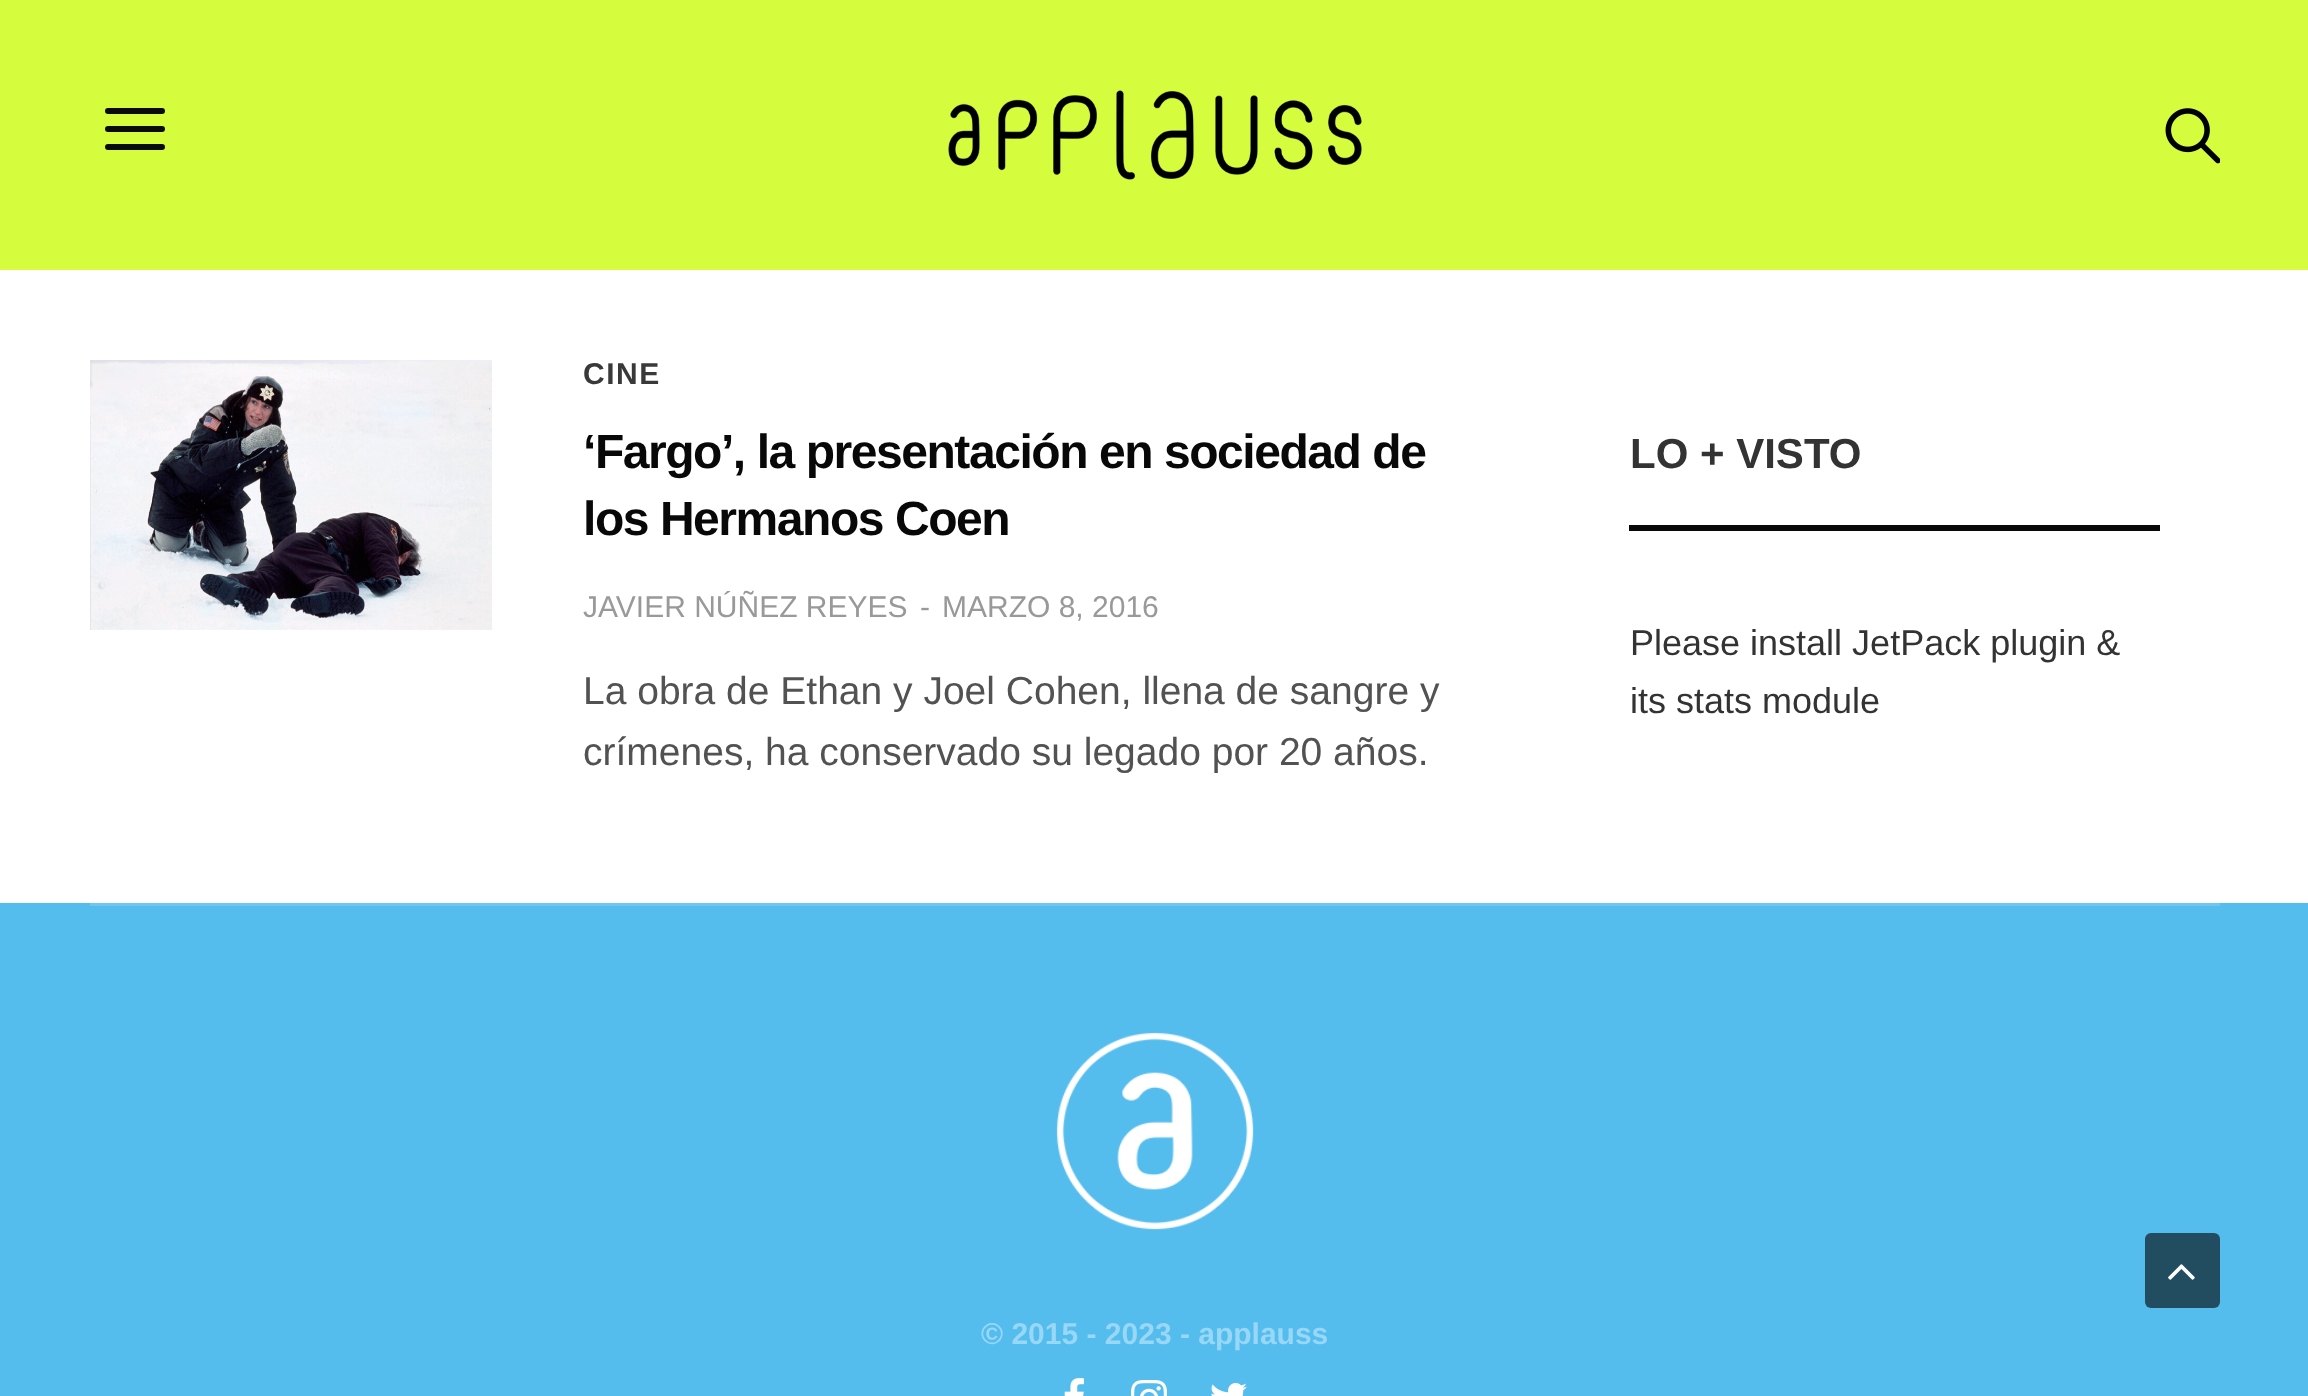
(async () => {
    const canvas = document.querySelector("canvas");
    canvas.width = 2308;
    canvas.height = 1396;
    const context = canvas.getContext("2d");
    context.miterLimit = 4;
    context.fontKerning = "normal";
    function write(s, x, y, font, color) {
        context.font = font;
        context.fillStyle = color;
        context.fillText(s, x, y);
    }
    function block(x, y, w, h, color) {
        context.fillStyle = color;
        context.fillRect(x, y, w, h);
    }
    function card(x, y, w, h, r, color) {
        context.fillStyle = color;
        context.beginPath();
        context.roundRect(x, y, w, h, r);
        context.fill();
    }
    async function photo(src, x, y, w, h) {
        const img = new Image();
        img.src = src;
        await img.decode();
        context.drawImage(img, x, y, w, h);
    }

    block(0, 0, 2308, 1396, "rgb(84, 189, 238)");
    block(0, 0, 2308, 270, "rgb(213, 253, 61)");
    card(105, 108, 60, 6, 3, "rgb(10, 10, 10)");
    card(105, 126, 60, 6, 3, "rgb(10, 10, 10)");
    card(105, 144, 60, 6, 3, "rgb(10, 10, 10)");
    await photo("media/1.png", 948, 90, 414, 90);
    await photo("media/2.png", 2165, 108, 55, 56);
    block(0, 270, 2308, 633, "rgb(255, 255, 255)");
    await photo("media/3.png", 90, 360, 402, 270);
    context.letterSpacing = "1.5px";
    write("CINE", 583, 384, "bold 30px Liberation Sans", "rgb(57, 57, 57)");
    context.letterSpacing = "-1.45px";
    write("‘Fargo’, la presentación en sociedad de", 583, 468, "bold 48px Liberation Sans", "rgb(8, 8, 8)");
    write("los Hermanos Coen", 583, 535, "bold 48px Liberation Sans", "rgb(8, 8, 8)");
    context.letterSpacing = "0px";
    write("JAVIER NÚÑEZ REYES", 583, 617, "30px Liberation Sans", "rgb(153, 153, 153)");
    write("-", 920, 617, "30px Liberation Sans", "rgb(153, 153, 153)");
    write("MARZO 8, 2016", 942, 617, "30px Liberation Sans", "rgb(153, 153, 153)");
    write("La obra de Ethan y Joel Cohen, llena de sangre y", 583, 704, "39px Liberation Sans", "rgb(82, 82, 82)");
    write("crímenes, ha conservado su legado por 20 años.", 583, 765, "39px Liberation Sans", "rgb(82, 82, 82)");
    block(1629, 525, 531, 6, "rgb(8, 8, 8)");
    write("LO + VISTO", 1630, 468, "bold 42px Liberation Sans", "rgb(51, 51, 51)");
    write("Please install JetPack plugin &", 1630, 655, "36px Liberation Sans", "rgb(51, 51, 51)");
    write("its stats module", 1630, 713, "36px Liberation Sans", "rgb(51, 51, 51)");
    block(90, 903, 2130, 3, "rgb(110, 199, 241)");
    await photo("media/4.png", 1056, 1032, 198, 198);
    write("© 2015 - 2023 - applauss", 981, 1344, "bold 30px Liberation Sans", "rgb(152, 215, 245)");
    await photo("media/5.png", 1064, 1378, 20, 18);
    await photo("media/6.png", 1131, 1380, 36, 16);
    await photo("media/7.png", 1211, 1383, 36, 13);
    card(2145, 1233, 75, 75, 6, "rgb(34, 76, 95)");
    await photo("media/8.png", 2168, 1264, 27, 16);
})();
